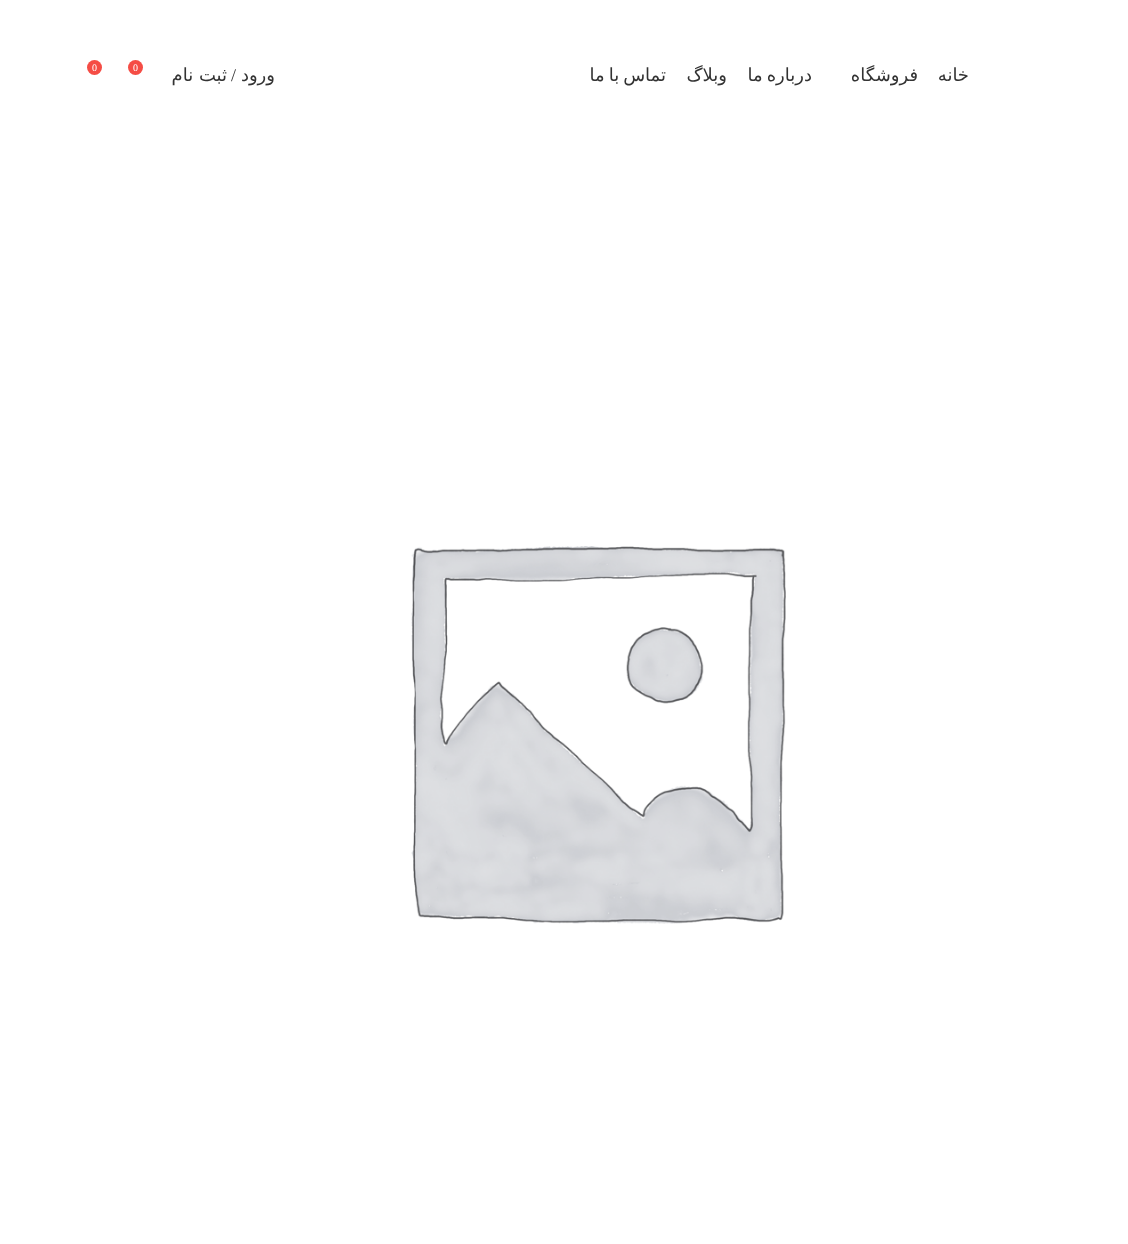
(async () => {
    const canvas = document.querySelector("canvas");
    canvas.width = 1128;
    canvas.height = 1244;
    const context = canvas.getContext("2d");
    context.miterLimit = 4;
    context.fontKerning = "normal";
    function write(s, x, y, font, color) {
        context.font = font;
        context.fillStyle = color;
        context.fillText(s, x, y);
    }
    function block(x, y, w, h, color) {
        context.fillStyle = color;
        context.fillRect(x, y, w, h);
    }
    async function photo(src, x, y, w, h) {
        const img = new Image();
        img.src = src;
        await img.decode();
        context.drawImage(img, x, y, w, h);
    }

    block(0, 0, 1128, 1244, "rgb(255, 255, 255)");
    context.letterSpacing = "0.25px";
    context.direction = "rtl";
    write("خانه", 969, 81, "18px DejaVu Sans", "rgb(51, 51, 51)");
    write("فروشگاه", 918, 81, "18px DejaVu Sans", "rgb(51, 51, 51)");
    context.wordSpacing = "-2px";
    write("درباره ما", 812, 81, "18px DejaVu Sans", "rgb(51, 51, 51)");
    context.wordSpacing = "0px";
    write("وبلاگ", 727, 81, "18px DejaVu Sans", "rgb(51, 51, 51)");
    context.wordSpacing = "-2px";
    write("تماس با ما", 666, 81, "18px DejaVu Sans", "rgb(51, 51, 51)");
    context.letterSpacing = "0px";
    context.wordSpacing = "0px";
    write("ورود", 275, 81, "18px DejaVu Sans", "rgb(51, 51, 51)");
    write("/", 236, 81, "18px Liberation Serif", "rgb(51, 51, 51)");
    write("ثبت نام", 227, 81, "18px DejaVu Sans", "rgb(51, 51, 51)");
    context.fillStyle = "rgb(245, 77, 69)";
    context.beginPath();
    context.arc(135.5, 67.5, 7.5, 0, Math.PI * 2);
    context.fill();
    context.direction = "ltr";
    write("0", 133, 71, "10px Liberation Serif", "rgb(255, 255, 255)");
    context.fillStyle = "rgb(245, 77, 69)";
    context.beginPath();
    context.arc(94.5, 67.5, 7.5, 0, Math.PI * 2);
    context.fill();
    write("0", 92, 71, "10px Liberation Serif", "rgb(255, 255, 255)");
    await photo("media/1.png", 411, 546, 375, 378);
})();
